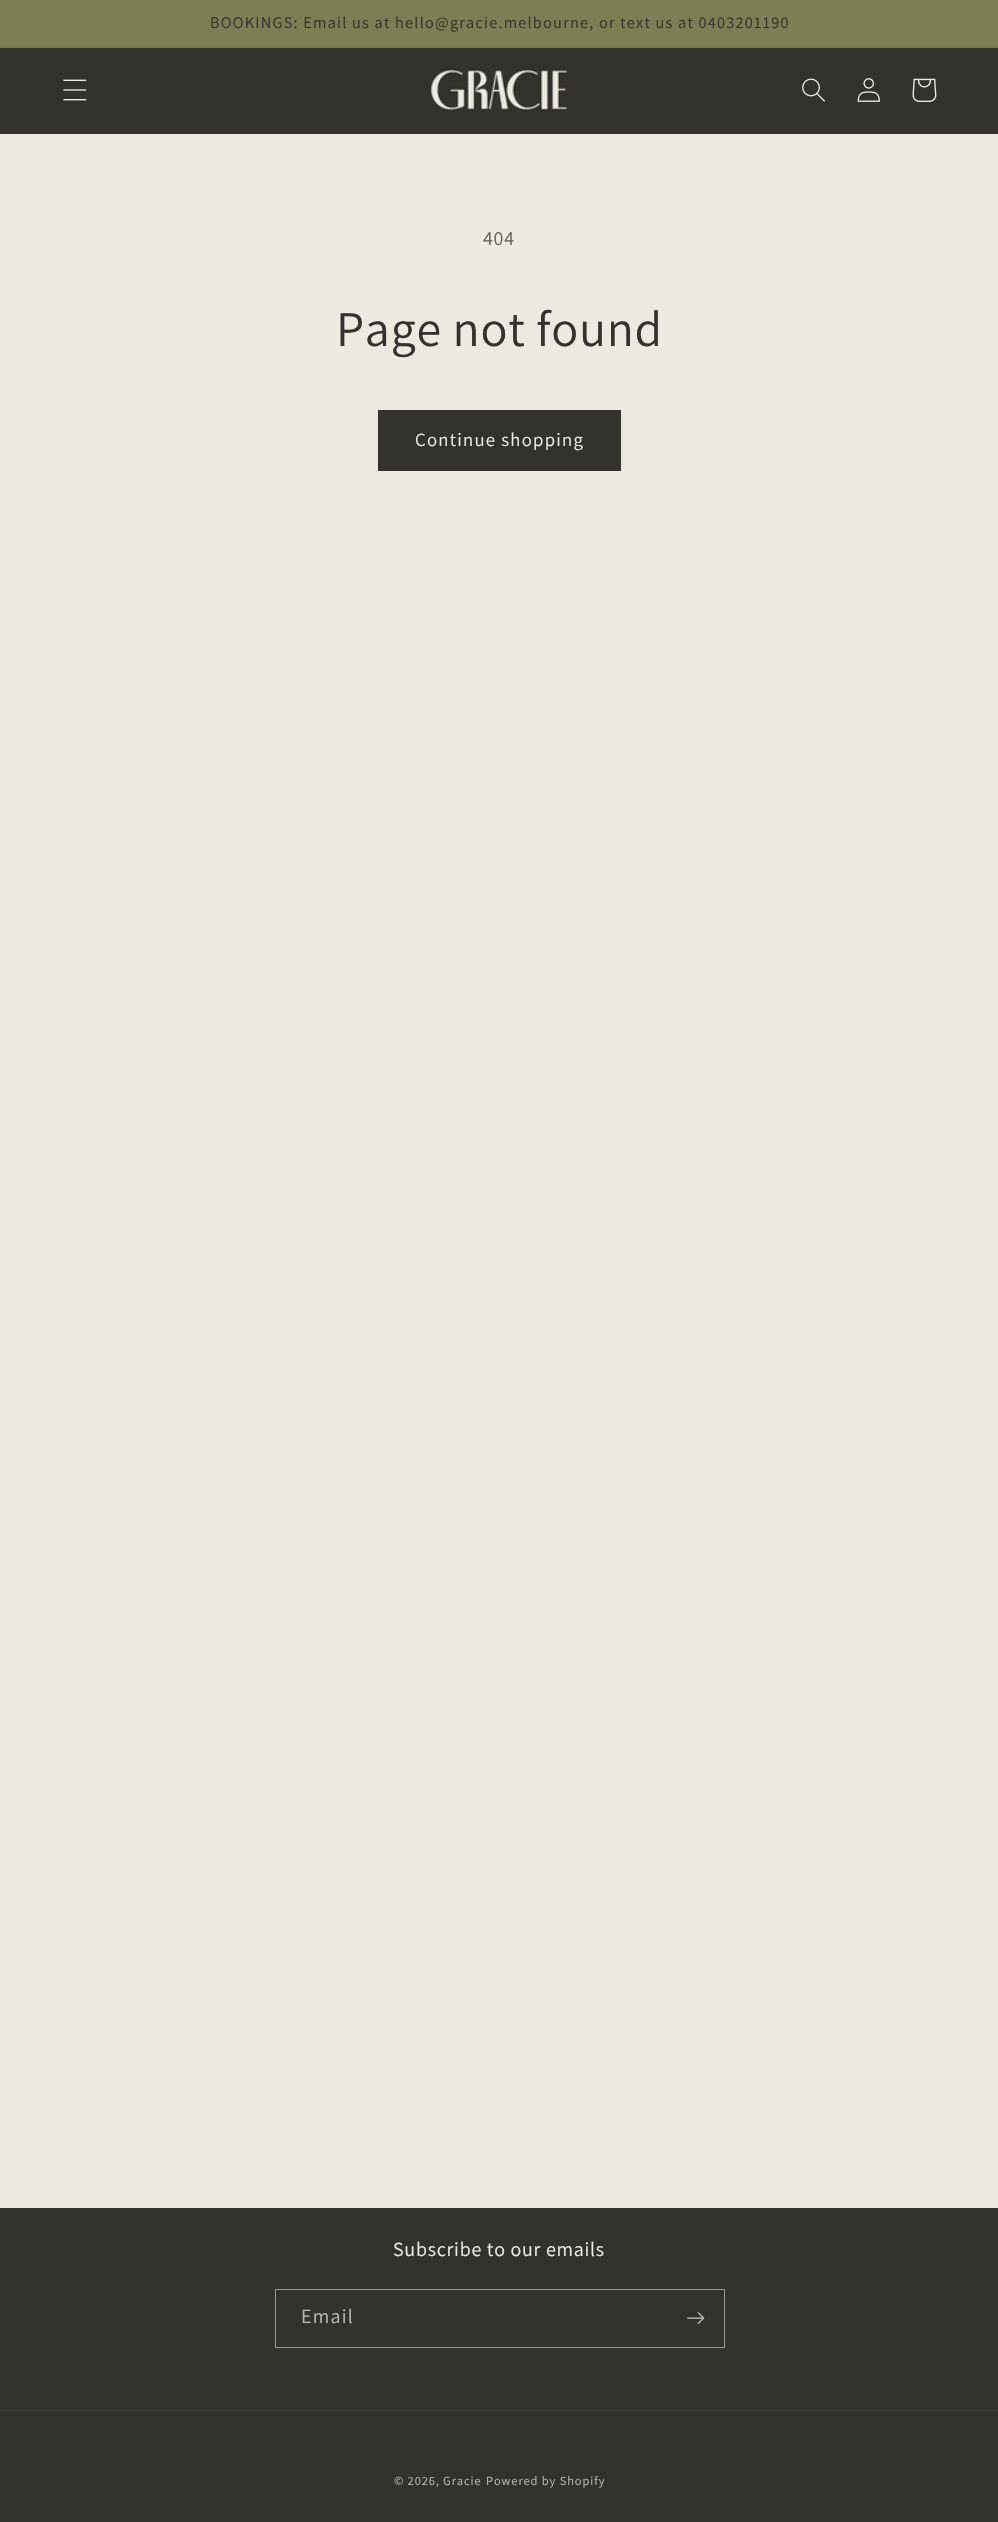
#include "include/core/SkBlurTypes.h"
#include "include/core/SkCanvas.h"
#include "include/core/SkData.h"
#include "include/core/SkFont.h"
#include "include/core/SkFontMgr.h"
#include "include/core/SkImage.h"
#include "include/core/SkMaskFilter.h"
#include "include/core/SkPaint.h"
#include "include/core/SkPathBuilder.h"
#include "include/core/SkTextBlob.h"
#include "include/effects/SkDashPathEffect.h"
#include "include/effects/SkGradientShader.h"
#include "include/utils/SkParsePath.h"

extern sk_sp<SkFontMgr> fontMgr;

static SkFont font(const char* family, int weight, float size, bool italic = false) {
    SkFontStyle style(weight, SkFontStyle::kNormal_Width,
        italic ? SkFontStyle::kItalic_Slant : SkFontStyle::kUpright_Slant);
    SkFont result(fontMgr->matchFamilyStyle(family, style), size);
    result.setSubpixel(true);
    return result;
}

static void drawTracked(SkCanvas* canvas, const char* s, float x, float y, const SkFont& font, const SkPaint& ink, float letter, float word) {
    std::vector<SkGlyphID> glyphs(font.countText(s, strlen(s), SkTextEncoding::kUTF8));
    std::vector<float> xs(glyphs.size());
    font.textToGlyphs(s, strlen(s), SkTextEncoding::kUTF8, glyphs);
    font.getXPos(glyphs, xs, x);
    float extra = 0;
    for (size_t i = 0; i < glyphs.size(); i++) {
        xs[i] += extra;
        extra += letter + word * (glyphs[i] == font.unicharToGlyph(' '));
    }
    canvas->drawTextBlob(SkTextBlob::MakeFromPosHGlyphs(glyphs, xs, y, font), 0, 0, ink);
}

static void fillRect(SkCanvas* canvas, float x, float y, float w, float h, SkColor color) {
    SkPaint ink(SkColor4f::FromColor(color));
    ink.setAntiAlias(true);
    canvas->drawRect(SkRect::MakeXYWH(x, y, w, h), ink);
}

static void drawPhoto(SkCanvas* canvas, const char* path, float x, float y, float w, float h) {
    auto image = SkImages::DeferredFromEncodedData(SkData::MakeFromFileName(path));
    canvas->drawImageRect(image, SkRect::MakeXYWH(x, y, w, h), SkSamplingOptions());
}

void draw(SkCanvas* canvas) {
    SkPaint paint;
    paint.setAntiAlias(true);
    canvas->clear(0xFFECE9E0);
    fillRect(canvas, 0, 0, 998, 48, 0xFF7D7E54);
    fillRect(canvas, 0, 46, 998, 1, 0xFF777851);
    SkFont font1 = font("Assistant", 400, 16.25f);
    paint.setColor(0xFF33322F);
    drawTracked(canvas, "BOOKINGS: Email us at hello@gracie.melbourne, or text us at 0403201190", 210, 28, font1, paint, 1.25f, 0);
    fillRect(canvas, 0, 48, 998, 86, 0xFF33322F);
    drawPhoto(canvas, "assets/img1.png", 63, 79, 24, 22);
    drawPhoto(canvas, "assets/img2.png", 430, 68, 139, 44);
    drawPhoto(canvas, "assets/img3.png", 802, 78, 23, 24);
    drawPhoto(canvas, "assets/img4.png", 857, 78, 23, 24);
    drawPhoto(canvas, "assets/img5.png", 912, 78, 25, 24);
    SkFont font2 = font("Assistant", 400, 20);
    paint.setColor(0xFF61605B);
    drawTracked(canvas, "404", 483, 245, font2, paint, 0.75f, 0);
    SkFont font3 = font("Assistant", 400, 50);
    paint.setColor(0xFF33322F);
    drawTracked(canvas, "Page not found", 336, 346, font3, paint, 0.75f, 0);
    fillRect(canvas, 378, 410, 243, 61, 0xFF33322F);
    SkFont font4 = font("Assistant", 400, 18.75f);
    paint.setColor(0xFFECE9E0);
    drawTracked(canvas, "Continue shopping", 415, 446, font4, paint, 1.25f, 0);
    fillRect(canvas, 0, 2208, 998, 314, 0xFF33322F);
    drawTracked(canvas, "Subscribe to our emails", 393, 2256, font2, paint, 0.75f, 0);
    paint.setStroke(true);
    paint.setStrokeWidth(1);
    paint.setColor(0xFF999790);
    canvas->drawRect(SkRect::MakeXYWH(275.5f, 2289.5f, 449, 58), paint);
    paint.setStroke(false);
    paint.setColor(0xFFBEBBB4);
    drawTracked(canvas, "Email", 301, 2323, font2, paint, 1.25f, 0);
    drawPhoto(canvas, "assets/img6.png", 687, 2312, 18, 13);
    fillRect(canvas, 0, 2410, 998, 1, 0xFF42413D);
    SkFont font5 = font("Assistant", 400, 12.5f);
    drawTracked(canvas, "© 2026, Gracie", 394, 2485, font5, paint, 0.9f, 0);
    drawTracked(canvas, "Powered by Shopify", 486, 2485, font5, paint, 0.9f, 0);
}
